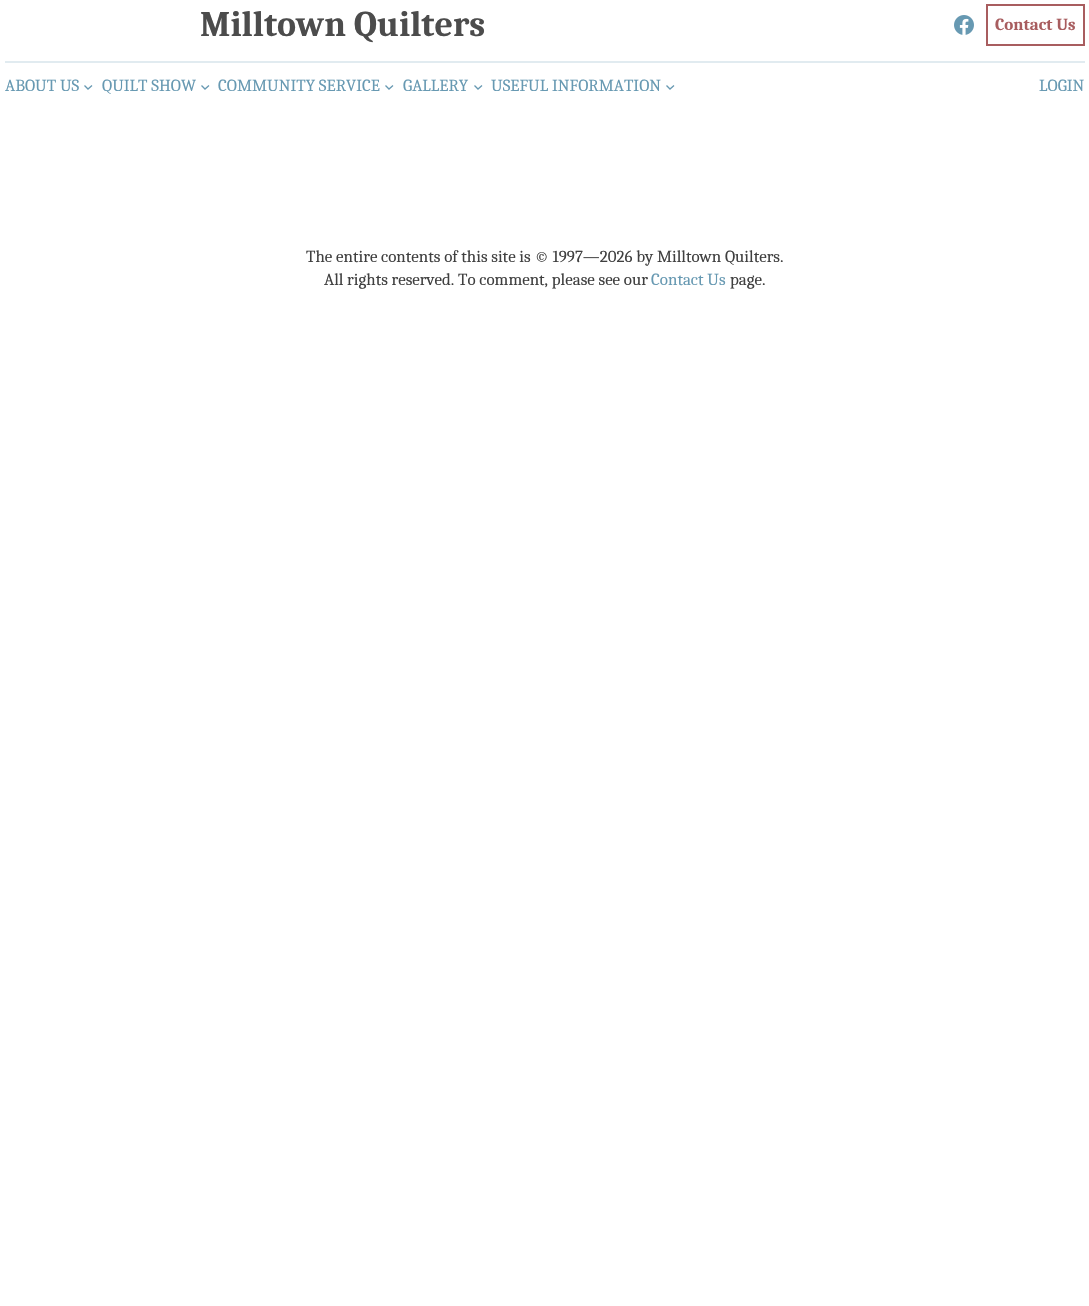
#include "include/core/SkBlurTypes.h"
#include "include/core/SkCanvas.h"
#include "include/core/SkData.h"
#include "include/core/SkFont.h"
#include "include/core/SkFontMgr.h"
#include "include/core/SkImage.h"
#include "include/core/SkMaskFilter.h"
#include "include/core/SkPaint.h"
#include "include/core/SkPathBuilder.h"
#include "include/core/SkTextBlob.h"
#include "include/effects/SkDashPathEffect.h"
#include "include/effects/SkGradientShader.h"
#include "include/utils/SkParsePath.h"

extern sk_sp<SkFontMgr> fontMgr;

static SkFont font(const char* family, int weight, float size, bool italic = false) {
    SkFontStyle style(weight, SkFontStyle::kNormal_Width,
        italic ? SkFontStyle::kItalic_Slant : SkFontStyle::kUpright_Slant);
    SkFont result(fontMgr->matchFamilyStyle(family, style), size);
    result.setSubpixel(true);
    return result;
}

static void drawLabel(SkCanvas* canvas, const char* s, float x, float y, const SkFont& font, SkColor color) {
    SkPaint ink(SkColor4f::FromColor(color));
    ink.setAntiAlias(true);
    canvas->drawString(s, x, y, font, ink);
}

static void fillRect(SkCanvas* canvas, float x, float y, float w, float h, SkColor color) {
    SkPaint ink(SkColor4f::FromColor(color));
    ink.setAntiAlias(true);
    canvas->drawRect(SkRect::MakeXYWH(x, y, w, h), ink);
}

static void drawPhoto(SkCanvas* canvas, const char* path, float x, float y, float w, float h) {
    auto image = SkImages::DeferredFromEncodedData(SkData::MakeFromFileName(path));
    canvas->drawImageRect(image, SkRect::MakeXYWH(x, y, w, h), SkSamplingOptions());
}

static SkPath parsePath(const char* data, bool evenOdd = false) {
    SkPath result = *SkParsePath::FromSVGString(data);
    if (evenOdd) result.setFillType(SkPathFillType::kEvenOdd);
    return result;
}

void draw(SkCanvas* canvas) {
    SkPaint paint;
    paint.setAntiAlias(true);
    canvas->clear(0xFFFFFFFF);
    fillRect(canvas, 5, 61, 1080, 2, 0xFFE1EBF0);
    SkFont font1 = font("Caladea", 700, 36);
    drawLabel(canvas, "Milltown Quilters", 200, 36, font1, 0xFF4C4C4C);
    drawPhoto(canvas, "assets/img1.png", 954, 15, 20, 20);
    paint.setStroke(true);
    paint.setStrokeWidth(2);
    paint.setColor(0xFFA85D5F);
    canvas->drawRect(SkRect::MakeXYWH(987, 5, 97, 40), paint);
    SkFont font2 = font("Caladea", 700, 16.95f);
    drawLabel(canvas, "Contact Us", 995, 30, font2, 0xFFA85D5F);
    SkFont font3 = font("Caladea", 400, 16.95f);
    drawLabel(canvas, "ABOUT US", 5, 91, font3, 0xFF6799B2);
    paint.setStrokeWidth(1.3f);
    paint.setColor(0xFF6799B2);
    canvas->drawPath(parsePath("M84.5 85.5L88 89L92 85.5"), paint);
    drawLabel(canvas, "QUILT SHOW", 102, 91, font3, 0xFF6799B2);
    canvas->drawPath(parsePath("M201.5 85.5L205 89L209 85.5"), paint);
    drawLabel(canvas, "COMMUNITY SERVICE", 218, 91, font3, 0xFF6799B2);
    canvas->drawPath(parsePath("M385.5 85.5L389 89L393 85.5"), paint);
    drawLabel(canvas, "GALLERY", 403, 91, font3, 0xFF6799B2);
    canvas->drawPath(parsePath("M474.5 85.5L478 89L482 85.5"), paint);
    drawLabel(canvas, "USEFUL INFORMATION", 491, 91, font3, 0xFF6799B2);
    canvas->drawPath(parsePath("M666.5 85.5L670 89L674 85.5"), paint);
    drawLabel(canvas, "LOGIN", 1039, 91, font3, 0xFF6799B2);
    drawLabel(canvas, "The entire contents of this site is © 1997—2026 by Milltown Quilters.", 306, 262, font3, 0xFF404040);
    drawLabel(canvas, "All rights reserved. To comment, please see our", 324, 285, font3, 0xFF404040);
    drawLabel(canvas, "Contact Us", 651, 285, font3, 0xFF6799B2);
    drawLabel(canvas, "page.", 730, 285, font3, 0xFF404040);
}
